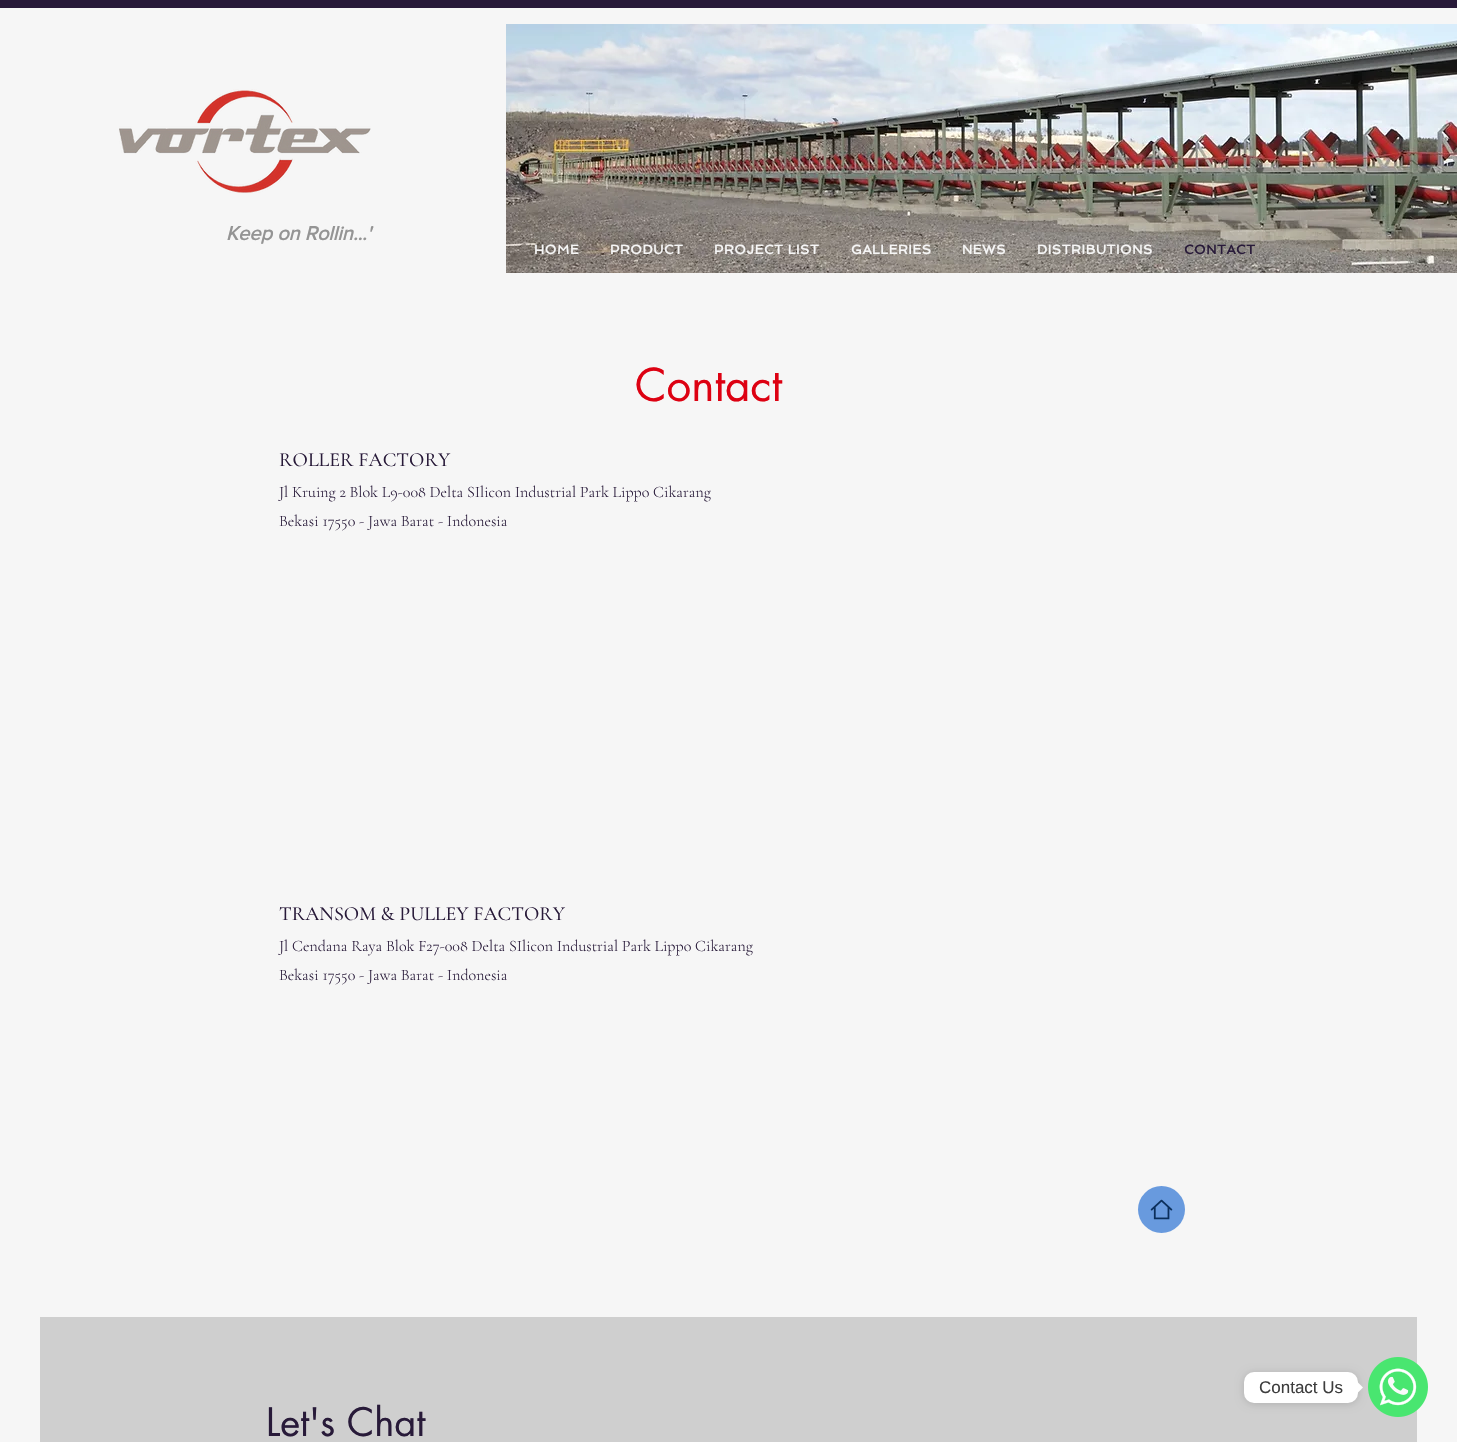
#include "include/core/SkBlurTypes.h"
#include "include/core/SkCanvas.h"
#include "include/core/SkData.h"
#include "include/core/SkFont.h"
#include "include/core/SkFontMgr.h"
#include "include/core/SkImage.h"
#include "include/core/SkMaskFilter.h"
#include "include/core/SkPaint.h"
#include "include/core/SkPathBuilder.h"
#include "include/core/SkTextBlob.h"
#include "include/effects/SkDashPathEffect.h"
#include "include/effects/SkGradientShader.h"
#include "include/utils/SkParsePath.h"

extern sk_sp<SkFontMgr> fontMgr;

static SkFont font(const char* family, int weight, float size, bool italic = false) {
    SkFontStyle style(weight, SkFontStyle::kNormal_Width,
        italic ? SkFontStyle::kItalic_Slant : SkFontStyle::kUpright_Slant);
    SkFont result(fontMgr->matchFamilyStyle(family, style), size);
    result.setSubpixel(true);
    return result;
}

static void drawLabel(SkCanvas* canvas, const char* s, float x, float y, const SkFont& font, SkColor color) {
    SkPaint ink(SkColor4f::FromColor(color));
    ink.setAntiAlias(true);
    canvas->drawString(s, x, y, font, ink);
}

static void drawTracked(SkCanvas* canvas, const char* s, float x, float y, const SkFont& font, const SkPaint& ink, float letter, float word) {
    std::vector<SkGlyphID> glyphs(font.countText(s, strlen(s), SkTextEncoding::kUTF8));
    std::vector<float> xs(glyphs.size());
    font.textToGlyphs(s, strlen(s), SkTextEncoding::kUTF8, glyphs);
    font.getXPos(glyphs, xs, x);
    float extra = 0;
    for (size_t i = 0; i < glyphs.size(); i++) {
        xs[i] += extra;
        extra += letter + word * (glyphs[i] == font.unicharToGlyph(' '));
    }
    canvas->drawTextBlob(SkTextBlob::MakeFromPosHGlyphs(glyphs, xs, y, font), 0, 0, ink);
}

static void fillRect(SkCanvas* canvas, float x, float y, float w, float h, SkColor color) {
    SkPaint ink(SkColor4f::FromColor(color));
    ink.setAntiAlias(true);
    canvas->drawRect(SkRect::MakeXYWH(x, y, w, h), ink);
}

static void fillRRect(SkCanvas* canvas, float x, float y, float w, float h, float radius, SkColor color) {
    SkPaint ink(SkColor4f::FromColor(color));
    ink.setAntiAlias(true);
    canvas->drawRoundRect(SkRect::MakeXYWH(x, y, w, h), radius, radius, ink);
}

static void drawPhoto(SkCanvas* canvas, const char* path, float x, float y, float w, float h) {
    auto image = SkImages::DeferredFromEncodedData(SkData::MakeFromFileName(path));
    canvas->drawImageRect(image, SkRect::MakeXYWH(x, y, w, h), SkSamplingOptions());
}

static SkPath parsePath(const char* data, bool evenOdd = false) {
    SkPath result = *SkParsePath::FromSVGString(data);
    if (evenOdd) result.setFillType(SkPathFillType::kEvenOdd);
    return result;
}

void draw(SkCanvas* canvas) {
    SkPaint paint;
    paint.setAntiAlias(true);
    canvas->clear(0xFFF6F6F6);
    fillRect(canvas, 0, 0, 1457, 8, 0xFF281A39);
    drawPhoto(canvas, "assets/img1.png", 119, 89, 252, 104);
    drawPhoto(canvas, "assets/img2.png", 506, 24, 951, 249);
    SkFont font1 = font("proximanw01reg", 700, 20, true);
    drawLabel(canvas, "Keep on Rollin...'", 226, 240, font1, 0xFF949494);
    SkFont font2 = font("Spinnaker", 700, 13);
    paint.setColor(0xFFF6F6F6);
    drawTracked(canvas, "HOME", 534, 254, font2, paint, 0.6f, 0);
    drawTracked(canvas, "PRODUCT", 610, 254, font2, paint, 0.6f, 0);
    drawTracked(canvas, "PROJECT LIST", 714, 254, font2, paint, 0.6f, 0);
    drawTracked(canvas, "GALLERIES", 851, 254, font2, paint, 0.6f, 0);
    drawTracked(canvas, "NEWS", 962, 254, font2, paint, 0.6f, 0);
    drawTracked(canvas, "DISTRIBUTIONS", 1037, 254, font2, paint, 0.6f, 0);
    paint.setColor(0xFF281A39);
    drawTracked(canvas, "CONTACT", 1184, 254, font2, paint, 0.6f, 0);
    SkFont font3 = font("futura", 400, 44);
    drawLabel(canvas, "Contact", 635, 401, font3, 0xFFDD0112);
    SkFont font4 = font("Cormorant Garamond", 500, 20);
    drawLabel(canvas, "ROLLER FACTORY", 279, 466, font4, 0xFF281A39);
    SkFont font5 = font("Cormorant Garamond", 300, 16);
    drawLabel(canvas, "Jl Kruing 2 Blok L9-008 Delta SIlicon Industrial Park Lippo Cikarang", 279, 497, font5, 0xFF281A39);
    drawLabel(canvas, "Bekasi 17550 - Jawa Barat - Indonesia", 279, 526, font5, 0xFF281A39);
    drawLabel(canvas, "TRANSOM & PULLEY FACTORY", 279, 920, font4, 0xFF281A39);
    drawLabel(canvas, "Jl Cendana Raya Blok F27-008 Delta SIlicon Industrial Park Lippo Cikarang", 279, 951, font5, 0xFF281A39);
    drawLabel(canvas, "Bekasi 17550 - Jawa Barat - Indonesia", 279, 980, font5, 0xFF281A39);
    paint.setColor(0xFF689ADE);
    canvas->drawCircle(1161.5f, 1209.5f, 23.5f, paint);
    drawPhoto(canvas, "assets/img3.png", 1150, 1199, 23, 21);
    fillRect(canvas, 40, 1317, 1377, 125, 0xFFCFCFCF);
    SkFont font6 = font("futura", 400, 38);
    drawLabel(canvas, "Let's Chat", 266, 1436, font6, 0xFF281A39);
    drawPhoto(canvas, "assets/img4.png", 1368, 1357, 60, 60);
    paint.setColor(0x26000000);
    paint.setMaskFilter(SkMaskFilter::MakeBlur(kNormal_SkBlurStyle, 4));
    canvas->drawRoundRect(SkRect::MakeXYWH(1244, 1373, 114, 31), 10, 10, paint);
    paint.setMaskFilter(nullptr);
    fillRRect(canvas, 1244, 1372, 114, 31, 10, 0xFFFFFFFF);
    SkFont font7 = font("Liberation Sans", 400, 17);
    drawLabel(canvas, "Contact Us", 1259, 1393, font7, 0xFF3D3D3D);
    paint.setColor(0xFFFFFFFF);
    canvas->drawPath(parsePath("M1358 1392.5V1382.5L1363 1387.5Z"), paint);
}
